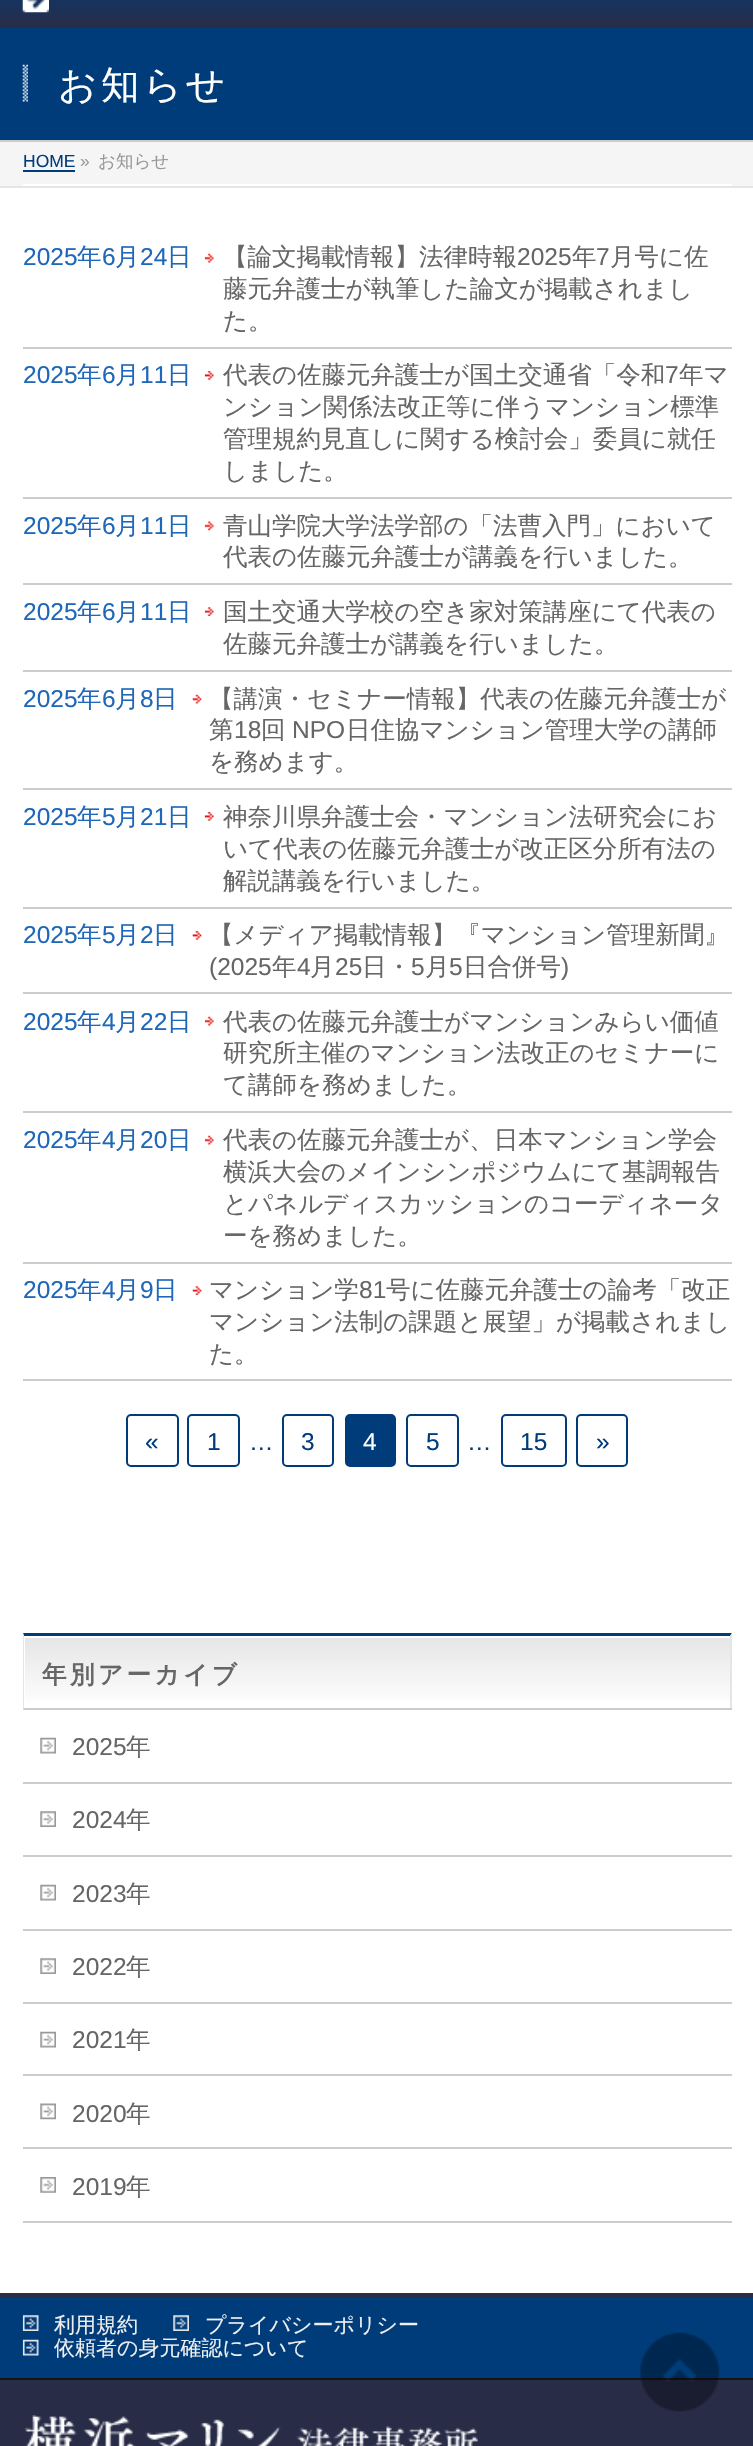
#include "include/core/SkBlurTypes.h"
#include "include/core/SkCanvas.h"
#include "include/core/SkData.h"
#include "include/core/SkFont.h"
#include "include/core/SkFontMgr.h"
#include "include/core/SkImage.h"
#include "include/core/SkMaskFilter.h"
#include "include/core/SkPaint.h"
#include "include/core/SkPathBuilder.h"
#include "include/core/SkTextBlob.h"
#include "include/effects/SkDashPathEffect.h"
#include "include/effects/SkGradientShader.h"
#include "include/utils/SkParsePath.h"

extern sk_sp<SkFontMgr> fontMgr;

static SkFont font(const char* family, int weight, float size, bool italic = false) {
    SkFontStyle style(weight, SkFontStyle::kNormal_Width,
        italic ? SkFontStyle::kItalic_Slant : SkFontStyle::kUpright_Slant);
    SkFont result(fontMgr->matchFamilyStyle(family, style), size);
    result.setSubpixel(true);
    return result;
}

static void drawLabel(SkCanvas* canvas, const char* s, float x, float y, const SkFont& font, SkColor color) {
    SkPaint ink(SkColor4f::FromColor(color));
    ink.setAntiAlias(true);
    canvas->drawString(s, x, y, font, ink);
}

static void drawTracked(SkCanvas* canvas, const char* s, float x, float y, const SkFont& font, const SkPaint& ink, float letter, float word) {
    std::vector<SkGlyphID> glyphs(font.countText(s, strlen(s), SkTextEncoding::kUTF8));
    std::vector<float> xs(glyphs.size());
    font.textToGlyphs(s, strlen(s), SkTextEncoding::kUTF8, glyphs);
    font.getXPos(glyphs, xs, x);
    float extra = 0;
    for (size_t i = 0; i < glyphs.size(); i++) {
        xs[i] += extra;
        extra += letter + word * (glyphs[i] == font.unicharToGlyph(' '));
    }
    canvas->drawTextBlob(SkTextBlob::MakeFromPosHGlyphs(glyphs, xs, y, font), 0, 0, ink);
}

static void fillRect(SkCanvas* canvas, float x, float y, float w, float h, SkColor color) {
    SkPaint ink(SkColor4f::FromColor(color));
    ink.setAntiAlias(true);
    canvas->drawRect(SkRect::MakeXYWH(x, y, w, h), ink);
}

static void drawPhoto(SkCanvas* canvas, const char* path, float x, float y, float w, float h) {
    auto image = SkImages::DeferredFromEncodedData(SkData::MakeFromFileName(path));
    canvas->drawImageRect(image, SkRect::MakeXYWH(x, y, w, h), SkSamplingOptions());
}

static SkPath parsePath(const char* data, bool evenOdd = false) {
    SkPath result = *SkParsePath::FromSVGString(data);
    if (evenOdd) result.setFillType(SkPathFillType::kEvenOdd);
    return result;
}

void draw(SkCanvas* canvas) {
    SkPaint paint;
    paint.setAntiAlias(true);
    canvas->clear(0xFFFFFFFF);
    {
        const SkColor colors[] = {0xFF003C7A, 0xFF282C47};
        const float stops[] = {0, 1};
        const SkPoint ends[] = {{376, -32}, {376, 28}};
        paint.setShader(SkGradientShader::MakeLinear(ends, colors, stops, 2, SkTileMode::kClamp));
        paint.setAlpha(255);
    }
    canvas->drawRect(SkRect::MakeXYWH(0, 0, 753, 28), paint);
    drawPhoto(canvas, "assets/img1.png", 22, 0, 27, 13);
    fillRect(canvas, 0, 28, 753, 112, 0xFF003C7A);
    fillRect(canvas, 0, 140, 753, 2, 0xFFCCCCCC);
    drawPhoto(canvas, "assets/img2.png", 22, 64, 6, 38);
    SkFont font1 = font("WenQuanYi Zen Hei", 500, 38.5f);
    paint.setShader(nullptr);
    paint.setColor(0xFFFFFFFF);
    drawTracked(canvas, "お知らせ", 58, 98, font1, paint, 3.5f, 0);
    fillRect(canvas, 0, 142, 753, 44, 0xFFF5F5F5);
    fillRect(canvas, 0, 186, 753, 2, 0xFFE5E5E5);
    fillRect(canvas, 23, 184, 709, 2, 0xFFFFFFFF);
    SkFont font2 = font("Liberation Sans", 400, 17.5f);
    drawLabel(canvas, "HOME", 23, 167, font2, 0xFF003C7A);
    fillRect(canvas, 23, 170, 52, 2, 0xFF003C7A);
    drawLabel(canvas, "»", 80, 167, font2, 0xFF999999);
    SkFont font3 = font("WenQuanYi Zen Hei", 500, 17.5f);
    drawLabel(canvas, "お知らせ", 98, 167, font3, 0xFF999999);
    fillRect(canvas, 23, 347, 709, 2, 0xFFCCCCCC);
    SkFont font4 = font("Liberation Sans", 400, 24.5f);
    drawLabel(canvas, "2025", 23, 265, font4, 0xFF1F67B9);
    SkFont font5 = font("WenQuanYi Zen Hei", 500, 24.5f);
    drawLabel(canvas, "年", 77, 265, font5, 0xFF1F67B9);
    drawLabel(canvas, "6", 102, 265, font4, 0xFF1F67B9);
    drawLabel(canvas, "月", 115, 265, font5, 0xFF1F67B9);
    drawLabel(canvas, "24", 140, 265, font4, 0xFF1F67B9);
    drawLabel(canvas, "日", 167, 265, font5, 0xFF1F67B9);
    drawPhoto(canvas, "assets/img3.png", 204, 253, 10, 10);
    drawLabel(canvas, "【論文掲載情報】法律時報", 223, 265, font5, 0xFF666666);
    drawLabel(canvas, "2025", 517, 265, font4, 0xFF666666);
    drawLabel(canvas, "年", 572, 265, font5, 0xFF666666);
    drawLabel(canvas, "7", 596, 265, font4, 0xFF666666);
    drawLabel(canvas, "月号に佐", 610, 265, font5, 0xFF666666);
    drawLabel(canvas, "藤元弁護士が執筆した論文が掲載されまし", 223, 297, font5, 0xFF666666);
    drawLabel(canvas, "た。", 223, 329, font5, 0xFF666666);
    fillRect(canvas, 23, 497, 709, 2, 0xFFCCCCCC);
    drawLabel(canvas, "2025", 23, 383, font4, 0xFF1F67B9);
    drawLabel(canvas, "年", 77, 383, font5, 0xFF1F67B9);
    drawLabel(canvas, "6", 102, 383, font4, 0xFF1F67B9);
    drawLabel(canvas, "月", 115, 383, font5, 0xFF1F67B9);
    drawLabel(canvas, "11", 140, 383, font4, 0xFF1F67B9);
    drawLabel(canvas, "日", 167, 383, font5, 0xFF1F67B9);
    drawPhoto(canvas, "assets/img4.png", 204, 371, 10, 9);
    drawLabel(canvas, "代表の佐藤元弁護士が国土交通省「令和", 223, 383, font5, 0xFF666666);
    drawLabel(canvas, "7", 665, 383, font4, 0xFF666666);
    drawLabel(canvas, "年マ", 679, 383, font5, 0xFF666666);
    drawLabel(canvas, "ンション関係法改正等に伴うマンション標準", 223, 415, font5, 0xFF666666);
    drawLabel(canvas, "管理規約見直しに関する検討会」委員に就任", 223, 447, font5, 0xFF666666);
    drawLabel(canvas, "しました。", 223, 479, font5, 0xFF666666);
    fillRect(canvas, 23, 583, 709, 2, 0xFFCCCCCC);
    drawLabel(canvas, "2025", 23, 534, font4, 0xFF1F67B9);
    drawLabel(canvas, "年", 77, 534, font5, 0xFF1F67B9);
    drawLabel(canvas, "6", 102, 534, font4, 0xFF1F67B9);
    drawLabel(canvas, "月", 115, 534, font5, 0xFF1F67B9);
    drawLabel(canvas, "11", 140, 534, font4, 0xFF1F67B9);
    drawLabel(canvas, "日", 167, 534, font5, 0xFF1F67B9);
    drawPhoto(canvas, "assets/img5.png", 204, 521, 10, 10);
    drawLabel(canvas, "青山学院大学法学部の「法曹入門」において", 223, 534, font5, 0xFF666666);
    drawLabel(canvas, "代表の佐藤元弁護士が講義を行いました。", 223, 565, font5, 0xFF666666);
    fillRect(canvas, 23, 670, 709, 2, 0xFFCCCCCC);
    drawLabel(canvas, "2025", 23, 620, font4, 0xFF1F67B9);
    drawLabel(canvas, "年", 77, 620, font5, 0xFF1F67B9);
    drawLabel(canvas, "6", 102, 620, font4, 0xFF1F67B9);
    drawLabel(canvas, "月", 115, 620, font5, 0xFF1F67B9);
    drawLabel(canvas, "11", 140, 620, font4, 0xFF1F67B9);
    drawLabel(canvas, "日", 167, 620, font5, 0xFF1F67B9);
    drawPhoto(canvas, "assets/img6.png", 204, 607, 10, 9);
    drawLabel(canvas, "国土交通大学校の空き家対策講座にて代表の", 223, 620, font5, 0xFF666666);
    drawLabel(canvas, "佐藤元弁護士が講義を行いました。", 223, 652, font5, 0xFF666666);
    fillRect(canvas, 23, 788, 709, 2, 0xFFCCCCCC);
    drawLabel(canvas, "2025", 23, 707, font4, 0xFF1F67B9);
    drawLabel(canvas, "年", 77, 707, font5, 0xFF1F67B9);
    drawLabel(canvas, "6", 102, 707, font4, 0xFF1F67B9);
    drawLabel(canvas, "月", 115, 707, font5, 0xFF1F67B9);
    drawLabel(canvas, "8", 140, 707, font4, 0xFF1F67B9);
    drawLabel(canvas, "日", 153, 707, font5, 0xFF1F67B9);
    drawPhoto(canvas, "assets/img7.png", 192, 694, 10, 10);
    drawLabel(canvas, "【講演・セミナー情報】代表の佐藤元弁護士が", 209, 707, font5, 0xFF666666);
    drawLabel(canvas, "第", 209, 738, font5, 0xFF666666);
    drawLabel(canvas, "18", 234, 738, font4, 0xFF666666);
    drawLabel(canvas, "回", 261, 738, font5, 0xFF666666);
    drawLabel(canvas, "NPO", 292, 738, font4, 0xFF666666);
    drawLabel(canvas, "日住協マンション管理大学の講師", 346, 738, font5, 0xFF666666);
    drawLabel(canvas, "を務めます。", 209, 770, font5, 0xFF666666);
    fillRect(canvas, 23, 907, 709, 2, 0xFFCCCCCC);
    drawLabel(canvas, "2025", 23, 825, font4, 0xFF1F67B9);
    drawLabel(canvas, "年", 77, 825, font5, 0xFF1F67B9);
    drawLabel(canvas, "5", 102, 825, font4, 0xFF1F67B9);
    drawLabel(canvas, "月", 115, 825, font5, 0xFF1F67B9);
    drawLabel(canvas, "21", 140, 825, font4, 0xFF1F67B9);
    drawLabel(canvas, "日", 167, 825, font5, 0xFF1F67B9);
    drawPhoto(canvas, "assets/img4.png", 204, 812, 10, 9);
    drawLabel(canvas, "神奈川県弁護士会・マンション法研究会にお", 223, 825, font5, 0xFF666666);
    drawLabel(canvas, "いて代表の佐藤元弁護士が改正区分所有法の", 223, 857, font5, 0xFF666666);
    drawLabel(canvas, "解説講義を行いました。", 223, 889, font5, 0xFF666666);
    fillRect(canvas, 23, 992, 709, 2, 0xFFCCCCCC);
    drawLabel(canvas, "2025", 23, 943, font4, 0xFF1F67B9);
    drawLabel(canvas, "年", 77, 943, font5, 0xFF1F67B9);
    drawLabel(canvas, "5", 102, 943, font4, 0xFF1F67B9);
    drawLabel(canvas, "月", 115, 943, font5, 0xFF1F67B9);
    drawLabel(canvas, "2", 140, 943, font4, 0xFF1F67B9);
    drawLabel(canvas, "日", 153, 943, font5, 0xFF1F67B9);
    drawPhoto(canvas, "assets/img8.png", 192, 931, 10, 9);
    drawLabel(canvas, "【メディア掲載情報】『マンション管理新聞』", 209, 943, font5, 0xFF666666);
    drawLabel(canvas, "(2025", 209, 975, font4, 0xFF666666);
    drawLabel(canvas, "年", 272, 975, font5, 0xFF666666);
    drawLabel(canvas, "4", 297, 975, font4, 0xFF666666);
    drawLabel(canvas, "月", 310, 975, font5, 0xFF666666);
    drawLabel(canvas, "25", 335, 975, font4, 0xFF666666);
    drawLabel(canvas, "日・", 362, 975, font5, 0xFF666666);
    drawLabel(canvas, "5", 411, 975, font4, 0xFF666666);
    drawLabel(canvas, "月", 425, 975, font5, 0xFF666666);
    drawLabel(canvas, "5", 449, 975, font4, 0xFF666666);
    drawLabel(canvas, "日合併号", 463, 975, font5, 0xFF666666);
    drawLabel(canvas, ")", 561, 975, font4, 0xFF666666);
    fillRect(canvas, 23, 1111, 709, 2, 0xFFCCCCCC);
    drawLabel(canvas, "2025", 23, 1030, font4, 0xFF1F67B9);
    drawLabel(canvas, "年", 77, 1030, font5, 0xFF1F67B9);
    drawLabel(canvas, "4", 102, 1030, font4, 0xFF1F67B9);
    drawLabel(canvas, "月", 115, 1030, font5, 0xFF1F67B9);
    drawLabel(canvas, "22", 140, 1030, font4, 0xFF1F67B9);
    drawLabel(canvas, "日", 167, 1030, font5, 0xFF1F67B9);
    drawPhoto(canvas, "assets/img3.png", 204, 1016, 10, 10);
    drawLabel(canvas, "代表の佐藤元弁護士がマンションみらい価値", 223, 1030, font5, 0xFF666666);
    drawLabel(canvas, "研究所主催のマンション法改正のセミナーに", 223, 1061, font5, 0xFF666666);
    drawLabel(canvas, "て講師を務めました。", 223, 1093, font5, 0xFF666666);
    fillRect(canvas, 23, 1262, 709, 2, 0xFFCCCCCC);
    drawLabel(canvas, "2025", 23, 1148, font4, 0xFF1F67B9);
    drawLabel(canvas, "年", 77, 1148, font5, 0xFF1F67B9);
    drawLabel(canvas, "4", 102, 1148, font4, 0xFF1F67B9);
    drawLabel(canvas, "月", 115, 1148, font5, 0xFF1F67B9);
    drawLabel(canvas, "20", 140, 1148, font4, 0xFF1F67B9);
    drawLabel(canvas, "日", 167, 1148, font5, 0xFF1F67B9);
    drawPhoto(canvas, "assets/img3.png", 204, 1135, 10, 10);
    drawLabel(canvas, "代表の佐藤元弁護士が、日本マンション学会", 223, 1148, font5, 0xFF666666);
    drawLabel(canvas, "横浜大会のメインシンポジウムにて基調報告", 223, 1180, font5, 0xFF666666);
    drawLabel(canvas, "とパネルディスカッションのコーディネータ", 223, 1212, font5, 0xFF666666);
    drawLabel(canvas, "ーを務めました。", 223, 1244, font5, 0xFF666666);
    fillRect(canvas, 23, 1379, 709, 2, 0xFFCCCCCC);
    drawLabel(canvas, "2025", 23, 1298, font4, 0xFF1F67B9);
    drawLabel(canvas, "年", 77, 1298, font5, 0xFF1F67B9);
    drawLabel(canvas, "4", 102, 1298, font4, 0xFF1F67B9);
    drawLabel(canvas, "月", 115, 1298, font5, 0xFF1F67B9);
    drawLabel(canvas, "9", 140, 1298, font4, 0xFF1F67B9);
    drawLabel(canvas, "日", 153, 1298, font5, 0xFF1F67B9);
    drawPhoto(canvas, "assets/img9.png", 192, 1286, 10, 9);
    drawLabel(canvas, "マンション学", 209, 1298, font5, 0xFF666666);
    drawLabel(canvas, "81", 359, 1298, font4, 0xFF666666);
    drawLabel(canvas, "号に佐藤元弁護士の論考「改正", 386, 1298, font5, 0xFF666666);
    drawLabel(canvas, "マンション法制の課題と展望」が掲載されまし", 209, 1330, font5, 0xFF666666);
    drawLabel(canvas, "た。", 209, 1362, font5, 0xFF666666);
    paint.setStroke(true);
    paint.setStrokeWidth(2);
    paint.setColor(0xFF003C7A);
    canvas->drawRoundRect(SkRect::MakeXYWH(127, 1415, 51, 51), 4, 4, paint);
    drawLabel(canvas, "«", 145, 1450, font4, 0xFF003C7A);
    canvas->drawRoundRect(SkRect::MakeXYWH(188, 1415, 51, 51), 4, 4, paint);
    drawLabel(canvas, "1", 207, 1450, font4, 0xFF003C7A);
    drawLabel(canvas, "…", 249, 1450, font4, 0xFF003C7A);
    canvas->drawRoundRect(SkRect::MakeXYWH(283, 1415, 50, 51), 4, 4, paint);
    drawLabel(canvas, "3", 301, 1450, font4, 0xFF003C7A);
    paint.setStroke(false);
    canvas->drawRoundRect(SkRect::MakeXYWH(346, 1415, 49, 51), 4, 4, paint);
    paint.setStroke(true);
    canvas->drawRoundRect(SkRect::MakeXYWH(346, 1415, 49, 51), 4, 4, paint);
    drawLabel(canvas, "4", 363, 1450, font4, 0xFFFFFFFF);
    canvas->drawRoundRect(SkRect::MakeXYWH(407, 1415, 51, 51), 4, 4, paint);
    drawLabel(canvas, "5", 426, 1450, font4, 0xFF003C7A);
    drawLabel(canvas, "…", 467, 1450, font4, 0xFF003C7A);
    canvas->drawRoundRect(SkRect::MakeXYWH(502, 1415, 64, 51), 4, 4, paint);
    drawLabel(canvas, "15", 520, 1450, font4, 0xFF003C7A);
    canvas->drawRoundRect(SkRect::MakeXYWH(577, 1415, 50, 51), 4, 4, paint);
    drawLabel(canvas, "»", 596, 1450, font4, 0xFF003C7A);
    paint.setStroke(false);
    {
        const SkColor colors[] = {0xFFE5E5E5, 0xFFFFFFFF};
        const float stops[] = {0, 1};
        const SkPoint ends[] = {{25, 1636}, {25, 1708}};
        paint.setShader(SkGradientShader::MakeLinear(ends, colors, stops, 2, SkTileMode::kClamp));
        paint.setAlpha(255);
    }
    canvas->drawRect(SkRect::MakeXYWH(25, 1638, 705, 63), paint);
    paint.setShader(nullptr);
    paint.setColor(0xFF003C7A);
    canvas->drawPath(parsePath("M23 1633H732L730 1636H24Z"), paint);
    paint.setColor(0xFFE5E5E5);
    canvas->drawPath(parsePath("M732 1633V1710L730 1708V1636Z"), paint);
    fillRect(canvas, 23, 1708, 709, 2, 0xFFCCCCCC);
    canvas->drawPath(parsePath("M23 1710V1633L24 1636V1708Z"), paint);
    SkFont font6 = font("WenQuanYi Zen Hei", 700, 24.5f);
    paint.setColor(0xFF666666);
    drawTracked(canvas, "年別アーカイブ", 42, 1683, font6, paint, 3.5f, 0);
    fillRect(canvas, 23, 1782, 709, 2, 0xFFCCCCCC);
    drawPhoto(canvas, "assets/img10.png", 40, 1737, 16, 17);
    drawLabel(canvas, "2025", 72, 1755, font4, 0xFF666666);
    drawLabel(canvas, "年", 126, 1755, font5, 0xFF666666);
    fillRect(canvas, 23, 1855, 709, 2, 0xFFCCCCCC);
    drawPhoto(canvas, "assets/img11.png", 40, 1811, 16, 16);
    drawLabel(canvas, "2024", 72, 1828, font4, 0xFF666666);
    drawLabel(canvas, "年", 126, 1828, font5, 0xFF666666);
    fillRect(canvas, 23, 1929, 709, 2, 0xFFCCCCCC);
    drawPhoto(canvas, "assets/img10.png", 40, 1884, 16, 17);
    drawLabel(canvas, "2023", 72, 1902, font4, 0xFF666666);
    drawLabel(canvas, "年", 126, 1902, font5, 0xFF666666);
    fillRect(canvas, 23, 2002, 709, 2, 0xFFCCCCCC);
    drawPhoto(canvas, "assets/img12.png", 40, 1958, 16, 16);
    drawLabel(canvas, "2022", 72, 1975, font4, 0xFF666666);
    drawLabel(canvas, "年", 126, 1975, font5, 0xFF666666);
    fillRect(canvas, 23, 2074, 709, 2, 0xFFCCCCCC);
    drawPhoto(canvas, "assets/img10.png", 40, 2031, 16, 17);
    drawLabel(canvas, "2021", 72, 2048, font4, 0xFF666666);
    drawLabel(canvas, "年", 126, 2048, font5, 0xFF666666);
    fillRect(canvas, 23, 2147, 709, 2, 0xFFCCCCCC);
    drawPhoto(canvas, "assets/img13.png", 40, 2103, 16, 17);
    drawLabel(canvas, "2020", 72, 2122, font4, 0xFF666666);
    drawLabel(canvas, "年", 126, 2122, font5, 0xFF666666);
    fillRect(canvas, 23, 2221, 709, 2, 0xFFCCCCCC);
    drawPhoto(canvas, "assets/img14.png", 40, 2177, 16, 16);
    drawLabel(canvas, "2019", 72, 2195, font4, 0xFF666666);
    drawLabel(canvas, "年", 126, 2195, font5, 0xFF666666);
    fillRect(canvas, 0, 2297, 753, 81, 0xFF003C7A);
    fillRect(canvas, 0, 2293, 753, 4, 0xFF282C47);
    drawPhoto(canvas, "assets/img15.png", 22, 2315, 17, 16);
    SkFont font7 = font("WenQuanYi Zen Hei", 500, 21);
    drawLabel(canvas, "利用規約", 54, 2332, font7, 0xFFEFEFEF);
    drawPhoto(canvas, "assets/img16.png", 173, 2315, 16, 16);
    drawLabel(canvas, "プライバシーポリシー", 205, 2332, font7, 0xFFEFEFEF);
    drawPhoto(canvas, "assets/img17.png", 22, 2339, 17, 17);
    drawLabel(canvas, "依頼者の身元確認について", 54, 2355, font7, 0xFFEFEFEF);
    fillRect(canvas, 0, 2380, 753, 66, 0xFF282C47);
    fillRect(canvas, 0, 2378, 753, 2, 0xFF151515);
    drawPhoto(canvas, "assets/img18.png", 24, 2415, 454, 31);
    drawPhoto(canvas, "assets/img19.png", 640, 2332, 80, 80);
}
